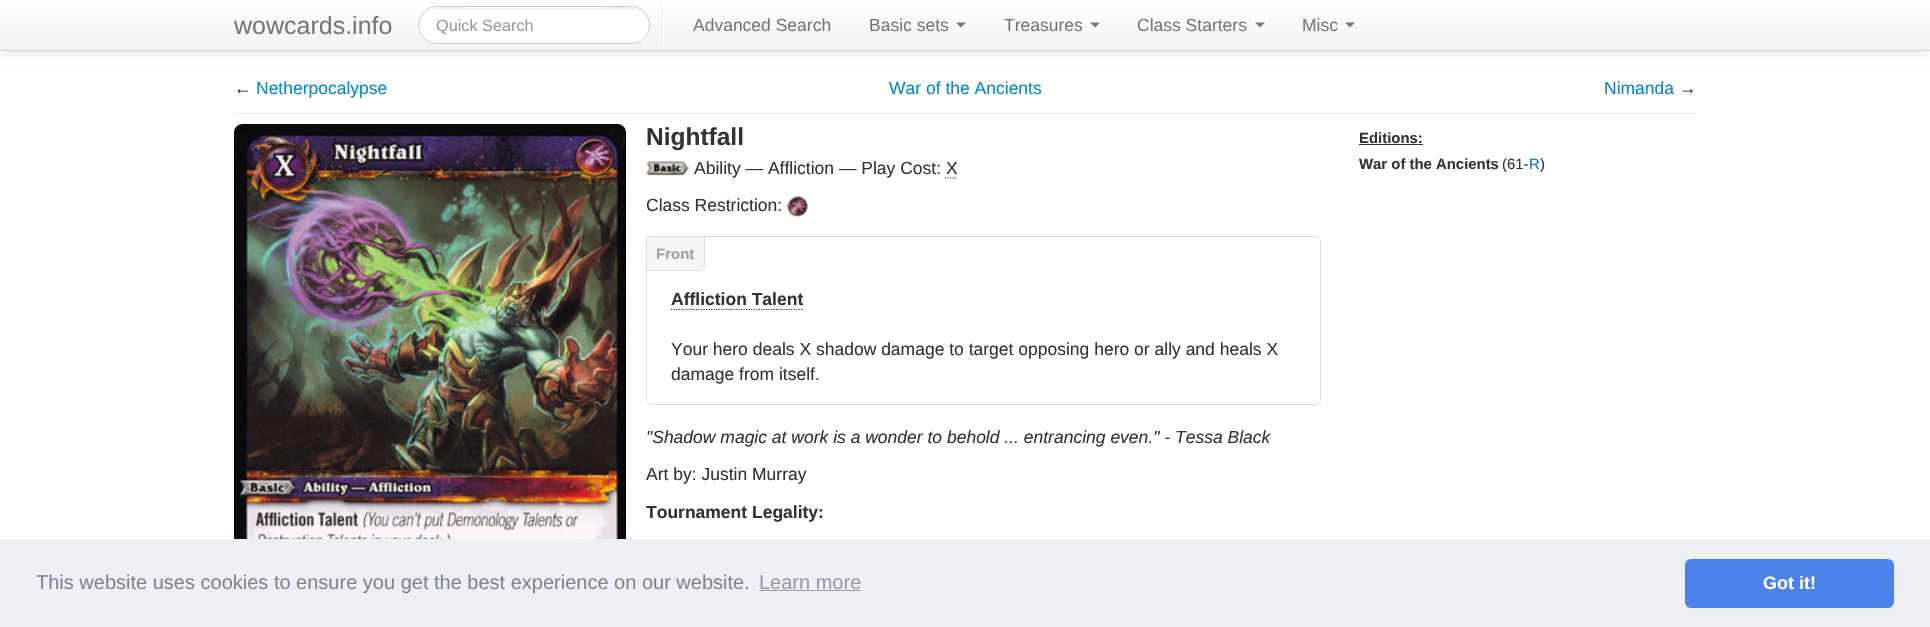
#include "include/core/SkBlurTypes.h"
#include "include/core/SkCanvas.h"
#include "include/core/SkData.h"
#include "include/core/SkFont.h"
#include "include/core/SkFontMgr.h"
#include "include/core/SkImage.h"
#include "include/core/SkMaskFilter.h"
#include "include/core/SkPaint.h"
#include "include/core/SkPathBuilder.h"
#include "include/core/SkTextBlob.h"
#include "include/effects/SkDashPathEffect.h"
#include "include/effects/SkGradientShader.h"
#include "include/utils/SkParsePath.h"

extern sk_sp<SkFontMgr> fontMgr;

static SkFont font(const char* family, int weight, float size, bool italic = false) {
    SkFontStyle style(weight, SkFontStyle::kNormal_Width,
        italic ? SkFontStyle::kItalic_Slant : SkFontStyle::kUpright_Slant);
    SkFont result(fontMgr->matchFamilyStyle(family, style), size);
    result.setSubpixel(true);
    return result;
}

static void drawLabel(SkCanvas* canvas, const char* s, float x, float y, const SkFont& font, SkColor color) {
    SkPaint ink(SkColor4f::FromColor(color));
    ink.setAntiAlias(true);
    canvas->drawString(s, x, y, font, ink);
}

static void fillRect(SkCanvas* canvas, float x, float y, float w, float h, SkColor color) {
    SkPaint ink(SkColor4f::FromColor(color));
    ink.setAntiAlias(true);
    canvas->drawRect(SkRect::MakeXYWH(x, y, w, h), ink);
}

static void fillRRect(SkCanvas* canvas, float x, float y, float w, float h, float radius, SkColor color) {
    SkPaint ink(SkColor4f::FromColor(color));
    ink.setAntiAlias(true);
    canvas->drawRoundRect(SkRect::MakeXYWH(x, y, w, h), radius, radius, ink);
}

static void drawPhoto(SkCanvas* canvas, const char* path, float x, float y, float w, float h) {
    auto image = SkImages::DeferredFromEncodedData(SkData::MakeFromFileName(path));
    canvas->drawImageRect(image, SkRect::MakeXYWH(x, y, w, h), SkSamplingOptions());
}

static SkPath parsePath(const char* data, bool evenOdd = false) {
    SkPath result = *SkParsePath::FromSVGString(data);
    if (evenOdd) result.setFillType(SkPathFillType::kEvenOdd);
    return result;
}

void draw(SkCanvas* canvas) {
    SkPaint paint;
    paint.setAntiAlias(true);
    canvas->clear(0xFFFFFFFF);
    paint.setColor(0x1A000000);
    paint.setMaskFilter(SkMaskFilter::MakeBlur(kNormal_SkBlurStyle, 6));
    canvas->drawRect(SkRect::MakeXYWH(0, 1, 1930, 52), paint);
    paint.setMaskFilter(nullptr);
    {
        const SkColor colors[] = {0xFFFFFFFF, 0xFFF2F2F2};
        const float stops[] = {0, 1};
        const SkPoint ends[] = {{965, 0}, {965, 50}};
        paint.setShader(SkGradientShader::MakeLinear(ends, colors, stops, 2, SkTileMode::kClamp));
        paint.setAlpha(255);
    }
    canvas->drawRect(SkRect::MakeXYWH(0, 0, 1930, 50), paint);
    fillRect(canvas, 0, 50, 1930, 1, 0xFFD4D4D4);
    SkFont font1 = font("Liberation Sans", 400, 25);
    drawLabel(canvas, "wowcards.info", 234, 34, font1, 0xFF777777);
    fillRRect(canvas, 418, 6, 232, 38, 19, 0xFFFFFFFF);
    paint.setShader(nullptr);
    paint.setColor(0xFFECECEC);
    canvas->drawPath(parsePath("M436 9H631C641 9 649 17 649 26C649 1 612 8 599 8H469C456 8 419 1 419 26C419 17 427 9 436 9Z"), paint);
    paint.setStroke(true);
    paint.setStrokeWidth(1);
    paint.setColor(0xFFCCCCCC);
    canvas->drawRoundRect(SkRect::MakeXYWH(418.5f, 6.5f, 231, 37), 18.5f, 18.5f, paint);
    SkFont font2 = font("Liberation Sans", 400, 16.25f);
    drawLabel(canvas, "Quick Search", 436, 31, font2, 0xFF999999);
    fillRect(canvas, 663, 10, 1, 40, 0xFFFFFFFF);
    fillRect(canvas, 661, 0, 1, 40, 0xFFF2F2F2);
    SkFont font3 = font("Liberation Sans", 400, 17.5f);
    drawLabel(canvas, "Advanced Search", 693, 31, font3, 0xFF777777);
    drawLabel(canvas, "Basic sets", 869, 31, font3, 0xFF777777);
    paint.setStroke(false);
    paint.setColor(0xFF777777);
    canvas->drawPath(parsePath("M956 22.5H966L961 27.5Z"), paint);
    drawLabel(canvas, "Treasures", 1004, 31, font3, 0xFF777777);
    canvas->drawPath(parsePath("M1090 22.5H1100L1095 27.5Z"), paint);
    drawLabel(canvas, "Class Starters", 1137, 31, font3, 0xFF777777);
    canvas->drawPath(parsePath("M1255 22.5H1265L1260 27.5Z"), paint);
    drawLabel(canvas, "Misc", 1302, 31, font3, 0xFF777777);
    canvas->drawPath(parsePath("M1345 22.5H1355L1350 27.5Z"), paint);
    fillRect(canvas, 234, 113, 1462, 1, 0xFFE5E5E5);
    drawLabel(canvas, "←", 234, 94, font3, 0xFF333333);
    drawLabel(canvas, "Netherpocalypse", 256, 94, font3, 0xFF0088CC);
    drawLabel(canvas, "War of the Ancients", 889, 94, font3, 0xFF0088CC);
    drawLabel(canvas, "Nimanda", 1604, 94, font3, 0xFF0088CC);
    drawLabel(canvas, "→", 1679, 94, font3, 0xFF333333);
    paint.setStroke(true);
    paint.setColor(0xFF000000);
    canvas->drawRoundRect(SkRect::MakeXYWH(234.5f, 124.5f, 391, 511), 7.5f, 7.5f, paint);
    drawPhoto(canvas, "assets/img1.png", 235, 125, 390, 414);
    SkFont font4 = font("Liberation Sans", 700, 24.5f);
    drawLabel(canvas, "Nightfall", 646, 145, font4, 0xFF333333);
    drawPhoto(canvas, "assets/img2.png", 646, 161, 43, 15);
    drawLabel(canvas, "Ability — Affliction — Play Cost: X", 694, 174, font3, 0xFF333333);
    paint.setStrokeWidth(1.2f);
    paint.setColor(0xFF333333);
    paint.setPathEffect(SkDashPathEffect::Make({{1.25f, 1.25f}}, 0));
    canvas->drawPath(parsePath("M945 178H957.5"), paint);
    paint.setPathEffect(nullptr);
    drawLabel(canvas, "Class Restriction:", 646, 211, font3, 0xFF333333);
    drawPhoto(canvas, "assets/img3.png", 787, 196, 21, 21);
    paint.setStrokeWidth(1);
    paint.setColor(0xFFDDDDDD);
    canvas->drawRoundRect(SkRect::MakeXYWH(646.5f, 236.5f, 674, 168), 4.5f, 4.5f, paint);
    paint.setStroke(false);
    paint.setColor(0xFFF5F5F5);
    canvas->drawPath(parsePath("M651 236.5H704.5V266C704.5 268.5 702.5 270.5 700 270.5H646.5V241C646.5 238.5 648.5 236.5 651 236.5Z"), paint);
    paint.setStroke(true);
    paint.setColor(0xFFDDDDDD);
    canvas->drawPath(parsePath("M651 236.5H704.5V266C704.5 268.5 702.5 270.5 700 270.5H646.5V241C646.5 238.5 648.5 236.5 651 236.5Z"), paint);
    SkFont font5 = font("Liberation Sans", 700, 15);
    drawLabel(canvas, "Front", 656, 259, font5, 0xFF9DA0A4);
    SkFont font6 = font("Liberation Sans", 700, 17.5f);
    drawLabel(canvas, "Affliction Talent", 671, 305, font6, 0xFF333333);
    paint.setStrokeWidth(1.2f);
    paint.setColor(0xFF333333);
    paint.setPathEffect(SkDashPathEffect::Make({{1.25f, 1.25f}}, 0));
    canvas->drawPath(parsePath("M671 309.5H804"), paint);
    paint.setPathEffect(nullptr);
    drawLabel(canvas, "Your hero deals X shadow damage to target opposing hero or ally and heals X", 671, 355, font3, 0xFF333333);
    drawLabel(canvas, "damage from itself.", 671, 380, font3, 0xFF333333);
    SkFont font7 = font("Liberation Sans", 400, 17.5f, true);
    drawLabel(canvas, "\"Shadow magic at work is a wonder to behold ... entrancing even.\" - Tessa Black", 646, 443, font7, 0xFF333333);
    drawLabel(canvas, "Art by: Justin Murray", 646, 480, font3, 0xFF333333);
    drawLabel(canvas, "Tournament Legality:", 646, 518, font6, 0xFF333333);
    SkFont font8 = font("Liberation Sans", 700, 14.9f);
    drawLabel(canvas, "Editions:", 1359, 143, font8, 0xFF333333);
    fillRect(canvas, 1359, 144, 64, 1, 0xFF333333);
    drawLabel(canvas, "War of the Ancients", 1359, 169, font8, 0xFF333333);
    SkFont font9 = font("Liberation Sans", 400, 14.9f);
    drawLabel(canvas, "(61-", 1502, 169, font9, 0xFF333333);
    drawLabel(canvas, "R", 1529, 169, font9, 0xFF0070DD);
    drawLabel(canvas, ")", 1540, 169, font9, 0xFF333333);
    fillRect(canvas, 0, 539, 1930, 88, 0xFFEDEFF5);
    SkFont font10 = font("Liberation Sans", 400, 20);
    drawLabel(canvas, "This website uses cookies to ensure you get the best experience on our website.", 36, 589, font10, 0xFF838391);
    drawLabel(canvas, "Learn more", 759, 589, font10, 0xFF9899A5);
    fillRect(canvas, 759, 590, 102, 1, 0xFF9899A5);
    fillRRect(canvas, 1685, 559, 209, 49, 6, 0xFF4B81E8);
    SkFont font11 = font("Liberation Sans", 700, 18);
    drawLabel(canvas, "Got it!", 1763, 589, font11, 0xFFFFFFFF);
}
